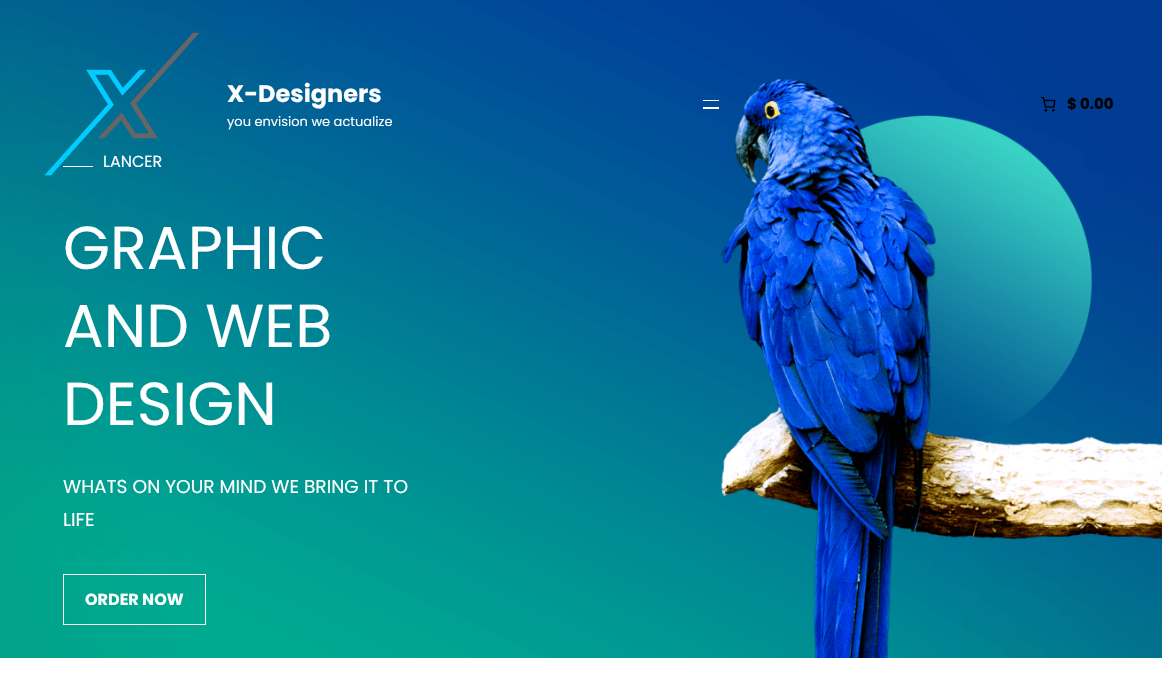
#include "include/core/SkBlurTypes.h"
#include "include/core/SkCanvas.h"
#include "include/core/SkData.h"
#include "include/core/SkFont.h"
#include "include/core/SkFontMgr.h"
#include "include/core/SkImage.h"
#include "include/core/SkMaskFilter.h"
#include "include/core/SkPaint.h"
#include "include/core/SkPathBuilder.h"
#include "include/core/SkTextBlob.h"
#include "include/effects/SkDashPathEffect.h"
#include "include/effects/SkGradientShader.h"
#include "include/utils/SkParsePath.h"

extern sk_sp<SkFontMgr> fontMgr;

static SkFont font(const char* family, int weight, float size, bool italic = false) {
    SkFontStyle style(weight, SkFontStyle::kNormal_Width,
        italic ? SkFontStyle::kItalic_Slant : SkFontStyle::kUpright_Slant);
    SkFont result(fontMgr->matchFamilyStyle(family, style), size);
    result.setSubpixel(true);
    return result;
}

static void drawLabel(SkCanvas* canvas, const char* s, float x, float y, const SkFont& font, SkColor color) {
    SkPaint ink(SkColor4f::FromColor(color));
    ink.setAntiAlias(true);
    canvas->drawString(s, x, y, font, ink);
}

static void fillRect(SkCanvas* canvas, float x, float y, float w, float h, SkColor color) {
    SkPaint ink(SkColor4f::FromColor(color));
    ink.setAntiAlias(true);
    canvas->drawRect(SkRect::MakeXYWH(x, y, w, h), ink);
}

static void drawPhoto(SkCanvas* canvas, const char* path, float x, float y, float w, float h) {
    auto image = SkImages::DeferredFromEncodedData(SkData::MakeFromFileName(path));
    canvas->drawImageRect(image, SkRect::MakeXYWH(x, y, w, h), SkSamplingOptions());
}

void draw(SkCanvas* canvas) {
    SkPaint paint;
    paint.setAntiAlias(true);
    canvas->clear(0xFFFFFFFF);
    drawPhoto(canvas, "assets/img3.png", 0, 0, 1162, 658);
    fillRect(canvas, 63, 166, 30, 1, 0xFFFEFEFE);
    SkFont font1 = font("Poppins", 400, 16);
    drawLabel(canvas, "LANCER", 103, 167, font1, 0xFFFEFEFE);
    drawPhoto(canvas, "assets/img1.png", 44, 32, 156, 144);
    SkFont font2 = font("Poppins", 700, 24);
    drawLabel(canvas, "X-Designers", 227, 102, font2, 0xFFFEFEFE);
    SkFont font3 = font("Poppins", 400, 13);
    drawLabel(canvas, "you envision we actualize", 227, 126, font3, 0xFFFEFEFE);
    fillRect(canvas, 703, 100, 16, 1, 0xFFFEFEFE);
    fillRect(canvas, 703, 107, 16, 2, 0xFFFEFEFE);
    drawPhoto(canvas, "assets/img2.png", 1041, 97, 15, 15);
    SkFont font4 = font("Poppins", 700, 15);
    drawLabel(canvas, "$ 0.00", 1067, 109, font4, 0xFF000000);
    SkFont font5 = font("Poppins", 400, 60.5f);
    drawLabel(canvas, "GRAPHIC", 63, 269, font5, 0xFFFEFEFE);
    drawLabel(canvas, "AND WEB", 63, 347, font5, 0xFFFEFEFE);
    drawLabel(canvas, "DESIGN", 63, 425, font5, 0xFFFEFEFE);
    SkFont font6 = font("Poppins", 400, 18.6f);
    drawLabel(canvas, "WHATS ON YOUR MIND WE BRING IT TO", 63, 493, font6, 0xFFFEFEFE);
    drawLabel(canvas, "LIFE", 63, 526, font6, 0xFFFEFEFE);
    paint.setStroke(true);
    paint.setStrokeWidth(1);
    paint.setColor(0xFFFEFEFE);
    canvas->drawRect(SkRect::MakeXYWH(63.5f, 574.5f, 142, 50), paint);
    SkFont font7 = font("Poppins", 700, 16);
    drawLabel(canvas, "ORDER NOW", 85, 605, font7, 0xFFFEFEFE);
}
